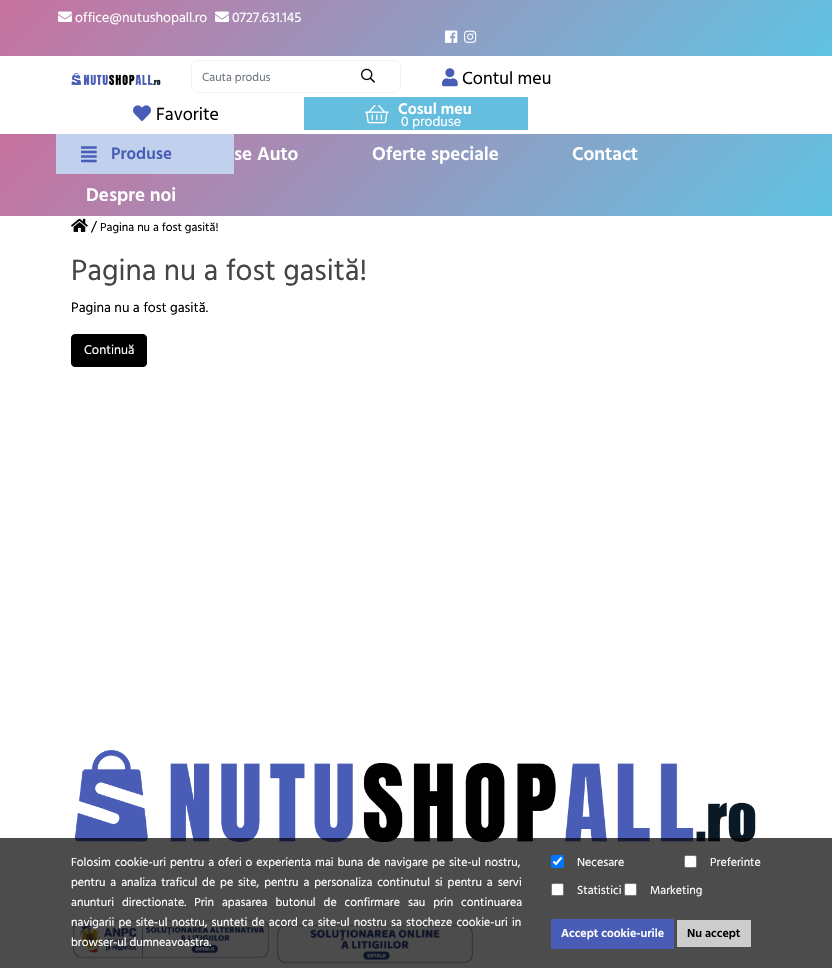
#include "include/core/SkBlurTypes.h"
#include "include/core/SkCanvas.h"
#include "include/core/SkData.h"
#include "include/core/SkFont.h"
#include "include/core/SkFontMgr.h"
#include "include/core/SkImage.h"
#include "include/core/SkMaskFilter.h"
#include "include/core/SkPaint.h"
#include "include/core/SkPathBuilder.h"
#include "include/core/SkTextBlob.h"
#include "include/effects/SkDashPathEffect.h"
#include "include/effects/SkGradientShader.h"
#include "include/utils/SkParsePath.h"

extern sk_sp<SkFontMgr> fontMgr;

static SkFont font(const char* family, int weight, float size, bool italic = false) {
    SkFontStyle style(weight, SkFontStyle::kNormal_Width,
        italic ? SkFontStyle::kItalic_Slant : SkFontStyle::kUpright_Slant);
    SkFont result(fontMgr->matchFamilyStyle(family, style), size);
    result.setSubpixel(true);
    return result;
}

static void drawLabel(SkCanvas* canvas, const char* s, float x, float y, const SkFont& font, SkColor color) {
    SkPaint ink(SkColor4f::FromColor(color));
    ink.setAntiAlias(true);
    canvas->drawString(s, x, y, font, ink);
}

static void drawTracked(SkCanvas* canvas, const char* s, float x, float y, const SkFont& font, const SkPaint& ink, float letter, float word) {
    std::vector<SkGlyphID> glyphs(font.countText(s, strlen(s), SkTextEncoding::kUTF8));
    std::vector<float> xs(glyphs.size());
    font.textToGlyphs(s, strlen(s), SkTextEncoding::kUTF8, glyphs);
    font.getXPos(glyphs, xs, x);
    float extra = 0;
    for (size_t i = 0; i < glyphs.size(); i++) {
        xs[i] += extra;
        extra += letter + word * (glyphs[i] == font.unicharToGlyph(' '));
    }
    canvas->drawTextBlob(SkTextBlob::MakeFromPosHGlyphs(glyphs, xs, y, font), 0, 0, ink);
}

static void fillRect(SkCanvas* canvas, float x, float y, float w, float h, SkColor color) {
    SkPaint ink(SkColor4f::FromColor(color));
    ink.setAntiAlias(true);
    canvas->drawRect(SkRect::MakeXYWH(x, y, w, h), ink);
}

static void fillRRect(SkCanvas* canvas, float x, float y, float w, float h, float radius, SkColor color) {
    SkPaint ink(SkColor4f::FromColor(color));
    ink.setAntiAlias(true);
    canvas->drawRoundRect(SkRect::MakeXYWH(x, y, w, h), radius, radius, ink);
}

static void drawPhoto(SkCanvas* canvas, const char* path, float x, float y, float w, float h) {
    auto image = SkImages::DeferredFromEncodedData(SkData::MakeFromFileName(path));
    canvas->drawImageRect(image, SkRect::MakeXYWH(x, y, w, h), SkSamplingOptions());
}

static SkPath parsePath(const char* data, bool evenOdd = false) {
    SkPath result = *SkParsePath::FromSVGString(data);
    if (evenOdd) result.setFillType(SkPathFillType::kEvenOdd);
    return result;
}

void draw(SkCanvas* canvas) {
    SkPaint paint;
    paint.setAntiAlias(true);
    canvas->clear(0xFFFFFFFF);
    {
        const SkColor colors[] = {0xFFC8719E, 0xFF5FC3E3};
        const float stops[] = {0, 1};
        const SkPoint ends[] = {{194, -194}, {638, 250}};
        paint.setShader(SkGradientShader::MakeLinear(ends, colors, stops, 2, SkTileMode::kClamp));
        paint.setAlpha(255);
    }
    canvas->drawRect(SkRect::MakeXYWH(0, 0, 832, 56), paint);
    drawPhoto(canvas, "assets/img1.png", 58, 11, 14, 11);
    SkFont font1 = font("Hind Madurai", 400, 14);
    drawLabel(canvas, "office@nutushopall.ro", 75, 22, font1, 0xFFFFFFFF);
    drawPhoto(canvas, "assets/img2.png", 215, 11, 14, 11);
    drawLabel(canvas, "0727.631.145", 232, 22, font1, 0xFFFFFFFF);
    drawPhoto(canvas, "assets/img3.png", 445, 30, 13, 13);
    drawPhoto(canvas, "assets/img4.png", 464, 30, 13, 13);
    drawPhoto(canvas, "assets/img5.png", 71, 73, 90, 12);
    paint.setStroke(true);
    paint.setStrokeWidth(1);
    paint.setShader(nullptr);
    paint.setColor(0xFFF3F3F3);
    canvas->drawRoundRect(SkRect::MakeXYWH(191.5f, 60.5f, 209, 32), 6.5f, 6.5f, paint);
    SkFont font2 = font("Hind Madurai", 400, 12);
    drawLabel(canvas, "Cauta produs", 202, 81, font2, 0xFF6C757D);
    drawPhoto(canvas, "assets/img6.png", 361, 68, 14, 15);
    drawPhoto(canvas, "assets/img7.png", 442, 68, 16, 19);
    SkFont font3 = font("Hind Madurai", 400, 18);
    drawLabel(canvas, "Contul meu", 462, 84, font3, 0xFF000000);
    drawPhoto(canvas, "assets/img8.png", 133, 105, 18, 17);
    drawLabel(canvas, "Favorite", 156, 120, font3, 0xFF000000);
    fillRect(canvas, 304, 97, 224, 33, 0xFF66BEDF);
    drawPhoto(canvas, "assets/img9.png", 365, 105, 24, 19);
    SkFont font4 = font("Hind Madurai", 600, 16);
    drawLabel(canvas, "Cosul meu", 398, 114, font4, 0xFFFFFFFF);
    drawLabel(canvas, "0 produse", 401, 126, font1, 0xFFFFFFFF);
    paint.setStroke(false);
    {
        const SkColor colors[] = {0xFFC8719E, 0xFF5FC3E3};
        const float stops[] = {0, 1};
        const SkPoint ends[] = {{187, -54}, {645, 404}};
        paint.setShader(SkGradientShader::MakeLinear(ends, colors, stops, 2, SkTileMode::kClamp));
        paint.setAlpha(255);
    }
    canvas->drawRect(SkRect::MakeXYWH(0, 134, 832, 82), paint);
    SkFont font5 = font("Hind Madurai", 600, 19);
    drawLabel(canvas, "se Auto", 234, 160, font5, 0xFFFFFFFF);
    drawLabel(canvas, "Oferte speciale", 372, 160, font5, 0xFFFFFFFF);
    drawLabel(canvas, "Contact", 572, 160, font5, 0xFFFFFFFF);
    drawLabel(canvas, "Despre noi", 86, 201, font5, 0xFFFFFFFF);
    fillRect(canvas, 56, 134, 178, 40, 0xFFC1D0ED);
    drawPhoto(canvas, "assets/img10.png", 81, 146, 16, 17);
    SkFont font6 = font("Hind Madurai", 600, 17);
    drawLabel(canvas, "Produse", 111, 159, font6, 0xFF485DB6);
    drawPhoto(canvas, "assets/img11.png", 71, 218, 17, 14);
    drawLabel(canvas, "/", 91, 231, font1, 0xFF000000);
    drawLabel(canvas, "Pagina nu a fost gasită!", 100, 231, font2, 0xFF000000);
    SkFont font7 = font("Hind Madurai", 400, 30);
    drawLabel(canvas, "Pagina nu a fost gasită!", 71, 280, font7, 0xFF444444);
    drawLabel(canvas, "Pagina nu a fost gasită.", 71, 312, font1, 0xFF000000);
    paint.setShader(nullptr);
    paint.setColor(0xFF000000);
    canvas->drawRoundRect(SkRect::MakeXYWH(71.5f, 334.5f, 75, 32), 3.5f, 3.5f, paint);
    paint.setStroke(true);
    canvas->drawRoundRect(SkRect::MakeXYWH(71.5f, 334.5f, 75, 32), 3.5f, 3.5f, paint);
    SkFont font8 = font("Hind Madurai", 400, 13);
    drawLabel(canvas, "Continuă", 84, 354, font8, 0xFFFFFFFF);
    drawPhoto(canvas, "assets/img12.png", 74, 750, 682, 92);
    drawPhoto(canvas, "assets/img13.png", 73, 919, 196, 40);
    drawPhoto(canvas, "assets/img14.png", 277, 924, 196, 40);
    fillRect(canvas, 0, 838, 832, 130, 0xB3000000);
    paint.setStroke(false);
    paint.setColor(0xFFFFFFFF);
    drawTracked(canvas, "Folosim cookie-uri pentru a oferi o experienta mai buna de navigare pe site-ul nostru,", 71, 866, font2, paint, 0, 1);
    drawTracked(canvas, "pentru a analiza traficul de pe site, pentru a personaliza continutul si pentru a servi", 71, 886, font2, paint, 0, 2);
    drawTracked(canvas, "anunturi directionate. Prin apasarea butonul de confirmare sau prin continuarea", 71, 906, font2, paint, 0, 5);
    drawTracked(canvas, "navigarii pe site-ul nostru, sunteti de acord ca site-ul nostru sa stocheze cookie-uri in", 71, 926, font2, paint, 0, 1.25f);
    drawLabel(canvas, "browser-ul dumneavoastra.", 71, 946, font2, 0xFFFFFFFF);
    fillRRect(canvas, 551, 855, 13, 13, 2, 0xFF0075FF);
    paint.setStroke(true);
    paint.setStrokeWidth(2.1f);
    canvas->drawPath(parsePath("M553.5 861.5L556 864L561.5 857.5"), paint);
    drawLabel(canvas, "Necesare", 577, 866, font2, 0xFFFFFFFF);
    paint.setStroke(false);
    canvas->drawRoundRect(SkRect::MakeXYWH(684.5f, 855.5f, 12, 12), 1.5f, 1.5f, paint);
    paint.setStroke(true);
    paint.setStrokeWidth(1);
    paint.setColor(0xFF767676);
    canvas->drawRoundRect(SkRect::MakeXYWH(684.5f, 855.5f, 12, 12), 1.5f, 1.5f, paint);
    drawLabel(canvas, "Preferinte", 710, 866, font2, 0xFFFFFFFF);
    paint.setStroke(false);
    paint.setColor(0xFFFFFFFF);
    canvas->drawRoundRect(SkRect::MakeXYWH(551.5f, 883.5f, 12, 12), 1.5f, 1.5f, paint);
    paint.setStroke(true);
    paint.setColor(0xFF767676);
    canvas->drawRoundRect(SkRect::MakeXYWH(551.5f, 883.5f, 12, 12), 1.5f, 1.5f, paint);
    drawLabel(canvas, "Statistici", 577, 894, font2, 0xFFFFFFFF);
    paint.setStroke(false);
    paint.setColor(0xFFFFFFFF);
    canvas->drawRoundRect(SkRect::MakeXYWH(624.5f, 883.5f, 12, 12), 1.5f, 1.5f, paint);
    paint.setStroke(true);
    paint.setColor(0xFF767676);
    canvas->drawRoundRect(SkRect::MakeXYWH(624.5f, 883.5f, 12, 12), 1.5f, 1.5f, paint);
    drawLabel(canvas, "Marketing", 650, 894, font2, 0xFFFFFFFF);
    fillRect(canvas, 551, 919, 123, 30, 0xFF495DB6);
    SkFont font9 = font("Hind Madurai", 600, 12);
    drawLabel(canvas, "Accept cookie-urile", 561, 937, font9, 0xFFFFFFFF);
    fillRect(canvas, 677, 920, 74, 27, 0xFFCCCCCC);
    drawLabel(canvas, "Nu accept", 687, 937, font9, 0xFF000000);
}
